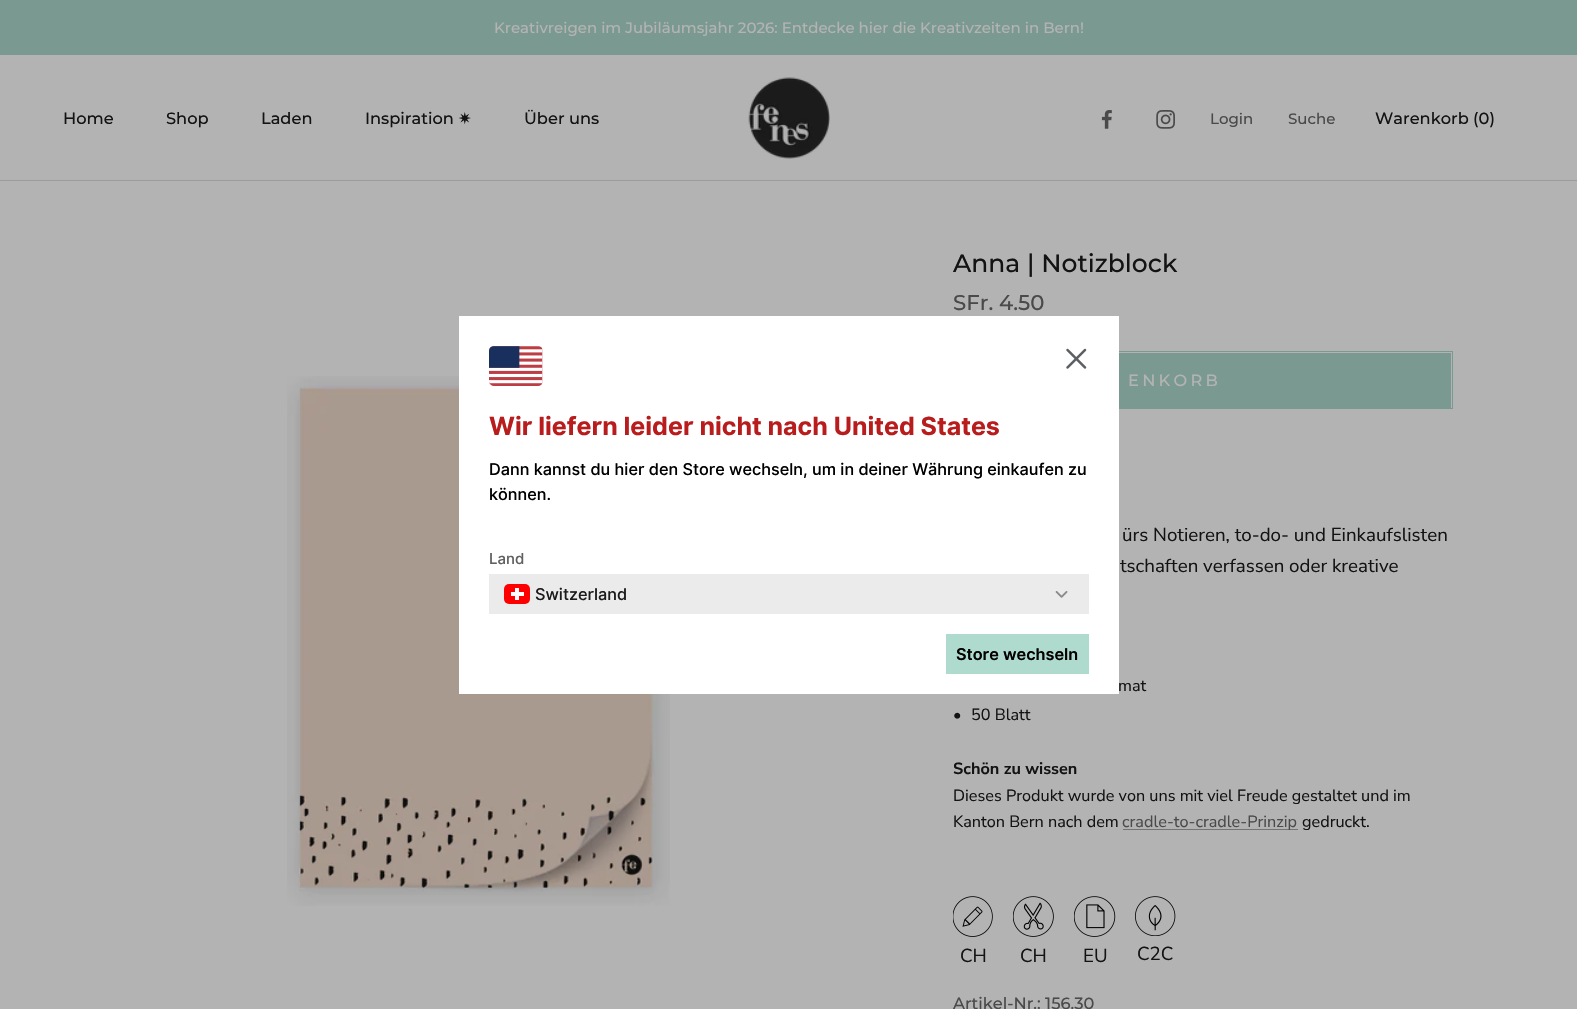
#include "include/core/SkBlurTypes.h"
#include "include/core/SkCanvas.h"
#include "include/core/SkData.h"
#include "include/core/SkFont.h"
#include "include/core/SkFontMgr.h"
#include "include/core/SkImage.h"
#include "include/core/SkMaskFilter.h"
#include "include/core/SkPaint.h"
#include "include/core/SkPathBuilder.h"
#include "include/core/SkTextBlob.h"
#include "include/effects/SkDashPathEffect.h"
#include "include/effects/SkGradientShader.h"
#include "include/utils/SkParsePath.h"

extern sk_sp<SkFontMgr> fontMgr;

static SkFont font(const char* family, int weight, float size, bool italic = false) {
    SkFontStyle style(weight, SkFontStyle::kNormal_Width,
        italic ? SkFontStyle::kItalic_Slant : SkFontStyle::kUpright_Slant);
    SkFont result(fontMgr->matchFamilyStyle(family, style), size);
    result.setSubpixel(true);
    return result;
}

static void drawLabel(SkCanvas* canvas, const char* s, float x, float y, const SkFont& font, SkColor color) {
    SkPaint ink(SkColor4f::FromColor(color));
    ink.setAntiAlias(true);
    canvas->drawString(s, x, y, font, ink);
}

static void drawTracked(SkCanvas* canvas, const char* s, float x, float y, const SkFont& font, const SkPaint& ink, float letter, float word) {
    std::vector<SkGlyphID> glyphs(font.countText(s, strlen(s), SkTextEncoding::kUTF8));
    std::vector<float> xs(glyphs.size());
    font.textToGlyphs(s, strlen(s), SkTextEncoding::kUTF8, glyphs);
    font.getXPos(glyphs, xs, x);
    float extra = 0;
    for (size_t i = 0; i < glyphs.size(); i++) {
        xs[i] += extra;
        extra += letter + word * (glyphs[i] == font.unicharToGlyph(' '));
    }
    canvas->drawTextBlob(SkTextBlob::MakeFromPosHGlyphs(glyphs, xs, y, font), 0, 0, ink);
}

static void fillRect(SkCanvas* canvas, float x, float y, float w, float h, SkColor color) {
    SkPaint ink(SkColor4f::FromColor(color));
    ink.setAntiAlias(true);
    canvas->drawRect(SkRect::MakeXYWH(x, y, w, h), ink);
}

static void fillRRect(SkCanvas* canvas, float x, float y, float w, float h, float radius, SkColor color) {
    SkPaint ink(SkColor4f::FromColor(color));
    ink.setAntiAlias(true);
    canvas->drawRoundRect(SkRect::MakeXYWH(x, y, w, h), radius, radius, ink);
}

static void drawPhoto(SkCanvas* canvas, const char* path, float x, float y, float w, float h) {
    auto image = SkImages::DeferredFromEncodedData(SkData::MakeFromFileName(path));
    canvas->drawImageRect(image, SkRect::MakeXYWH(x, y, w, h), SkSamplingOptions());
}

void draw(SkCanvas* canvas) {
    SkPaint paint;
    paint.setAntiAlias(true);
    canvas->clear(0xFFB3B3B3);
    fillRect(canvas, 0, 0, 1577, 55, 0xFF7A9990);
    SkFont font1 = font("Montserrat", 500, 15);
    drawLabel(canvas, "Kreativreigen im Jubiläumsjahr 2026: Entdecke hier die Kreativzeiten in Bern!", 494, 33, font1, 0xFFB3B3B3);
    fillRect(canvas, 0, 180, 1577, 1, 0xFF9B9B9B);
    SkFont font2 = font("Montserrat", 500, 16.25f);
    drawLabel(canvas, "Home", 63, 124, font2, 0xFF141313);
    drawLabel(canvas, "Shop", 166, 124, font2, 0xFF141313);
    drawLabel(canvas, "Laden", 261, 124, font2, 0xFF141313);
    drawLabel(canvas, "Inspiration", 365, 124, font2, 0xFF141313);
    SkFont font3 = font("DejaVu Sans", 400, 16.25f);
    drawLabel(canvas, "✷", 458, 124, font3, 0xFF141313);
    drawLabel(canvas, "Über uns", 524, 124, font2, 0xFF141313);
    drawPhoto(canvas, "assets/img1.png", 748, 77, 82, 82);
    drawPhoto(canvas, "assets/img2.png", 1101, 110, 11, 19);
    drawPhoto(canvas, "assets/img3.png", 1156, 110, 19, 19);
    drawLabel(canvas, "Login", 1210, 124, font1, 0xFF4A4A4A);
    drawLabel(canvas, "Suche", 1288, 124, font1, 0xFF4A4A4A);
    drawLabel(canvas, "Warenkorb (0)", 1375, 124, font2, 0xFF141313);
    drawPhoto(canvas, "assets/img4.png", 287, 376, 383, 530);
    SkFont font4 = font("Montserrat", 500, 25);
    drawLabel(canvas, "Anna | Notizblock", 953, 272, font4, 0xFF141313);
    SkFont font5 = font("Montserrat", 500, 21.25f);
    drawLabel(canvas, "SFr. 4.50", 953, 310, font5, 0xFF4A4A4A);
    paint.setStroke(true);
    paint.setStrokeWidth(1);
    paint.setColor(0xFF7A9990);
    canvas->drawRect(SkRect::MakeXYWH(953.5f, 351.5f, 499, 57), paint);
    fillRect(canvas, 1119, 353, 332, 55, 0xFF7A9990);
    paint.setStroke(false);
    paint.setColor(0xFFB3B3B3);
    drawTracked(canvas, "ENKORB", 1128, 386, font2, paint, 3.25f, 0);
    SkFont font6 = font("Nunito Sans", 400, 18.75f);
    drawLabel(canvas, "ürs Notieren, to-do- und Einkaufslisten", 1122, 541, font6, 0xFF141313);
    drawLabel(canvas, "tschaften verfassen oder kreative", 1120, 572, font6, 0xFF141313);
    SkFont font7 = font("Nunito Sans", 400, 16.25f);
    drawLabel(canvas, "mat", 1118, 691, font7, 0xFF141313);
    drawLabel(canvas, "•", 953, 720, font7, 0xFF141313);
    drawLabel(canvas, "50 Blatt", 971, 720, font7, 0xFF141313);
    SkFont font8 = font("Nunito Sans", 700, 16.25f);
    drawLabel(canvas, "Schön zu wissen", 953, 774, font8, 0xFF141313);
    drawLabel(canvas, "Dieses Produkt wurde von uns mit viel Freude gestaltet und im", 953, 801, font7, 0xFF141313);
    drawLabel(canvas, "Kanton Bern nach dem", 953, 827, font7, 0xFF141313);
    fillRect(canvas, 1123, 829, 175, 1, 0xFF747474);
    drawLabel(canvas, "cradle-to-cradle-Prinzip", 1122, 827, font7, 0xFF4A4A4A);
    drawLabel(canvas, "gedruckt.", 1302, 827, font7, 0xFF141313);
    drawPhoto(canvas, "assets/img5.png", 953, 896, 40, 41);
    drawLabel(canvas, "CH", 960, 962, font6, 0xFF141313);
    drawPhoto(canvas, "assets/img6.png", 1013, 896, 41, 41);
    drawLabel(canvas, "CH", 1020, 962, font6, 0xFF141313);
    drawPhoto(canvas, "assets/img7.png", 1074, 896, 42, 41);
    drawLabel(canvas, "EU", 1083, 962, font6, 0xFF141313);
    drawPhoto(canvas, "assets/img8.png", 1135, 896, 41, 40);
    drawLabel(canvas, "C2C", 1137, 960, font6, 0xFF141313);
    drawLabel(canvas, "Artikel-Nr.: 156.30", 953, 1009, font2, 0xFF4A4A4A);
    fillRect(canvas, 459, 316, 660, 378, 0xFFFFFFFF);
    drawPhoto(canvas, "assets/img9.png", 489, 346, 54, 40);
    drawPhoto(canvas, "assets/img10.png", 1066, 348, 21, 21);
    SkFont font9 = font("Inter", 700, 25);
    drawLabel(canvas, "Wir liefern leider nicht nach United States", 489, 435, font9, 0xFFB81C1C);
    SkFont font10 = font("Inter", 500, 16.25f);
    drawLabel(canvas, "Dann kannst du hier den Store wechseln, um in deiner Währung einkaufen zu", 489, 475, font10, 0xFF000000);
    drawLabel(canvas, "können.", 489, 500, font10, 0xFF000000);
    SkFont font11 = font("Inter", 500, 15);
    drawLabel(canvas, "Land", 489, 564, font11, 0xFF615F5F);
    fillRect(canvas, 489, 574, 600, 40, 0xFFEBEBEB);
    fillRRect(canvas, 504, 584, 26, 20, 5, 0xFFFF0000);
    fillRect(canvas, 511, 592, 13, 4, 0xFFFFFFFF);
    fillRect(canvas, 515, 588, 4, 12, 0xFFFFFFFF);
    drawLabel(canvas, "Switzerland", 535, 600, font10, 0xFF1C1B1B);
    drawPhoto(canvas, "assets/img11.png", 1055, 591, 13, 7);
    fillRect(canvas, 946, 634, 143, 40, 0xFFAFDBCE);
    SkFont font12 = font("Inter", 600, 16.25f);
    drawLabel(canvas, "Store wechseln", 956, 660, font12, 0xFF000000);
}
